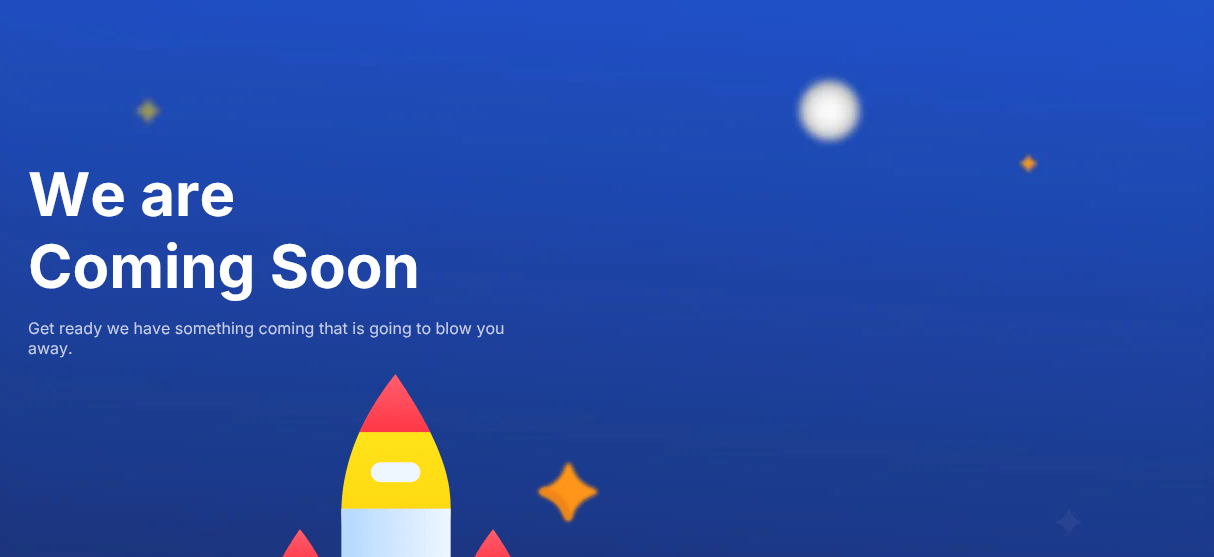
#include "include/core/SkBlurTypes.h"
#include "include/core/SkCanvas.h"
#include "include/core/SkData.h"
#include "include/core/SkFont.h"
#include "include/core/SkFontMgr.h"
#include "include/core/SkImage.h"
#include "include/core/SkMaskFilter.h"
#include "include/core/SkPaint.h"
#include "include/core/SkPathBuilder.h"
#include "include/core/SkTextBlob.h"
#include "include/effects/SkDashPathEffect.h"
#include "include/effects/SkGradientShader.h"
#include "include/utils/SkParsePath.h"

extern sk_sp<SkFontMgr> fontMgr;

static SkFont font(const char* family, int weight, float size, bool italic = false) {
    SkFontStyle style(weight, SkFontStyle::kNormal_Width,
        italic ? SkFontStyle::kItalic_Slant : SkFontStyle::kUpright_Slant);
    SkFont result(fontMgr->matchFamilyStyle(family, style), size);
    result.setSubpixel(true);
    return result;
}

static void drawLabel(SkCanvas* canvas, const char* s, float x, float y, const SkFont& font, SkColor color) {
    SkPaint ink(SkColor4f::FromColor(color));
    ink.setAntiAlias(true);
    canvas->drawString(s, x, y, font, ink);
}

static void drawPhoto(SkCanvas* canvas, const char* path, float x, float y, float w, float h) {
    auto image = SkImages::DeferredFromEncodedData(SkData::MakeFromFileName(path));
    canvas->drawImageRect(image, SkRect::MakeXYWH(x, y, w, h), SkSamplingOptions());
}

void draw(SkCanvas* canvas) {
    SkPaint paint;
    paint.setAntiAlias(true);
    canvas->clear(0xFFFFFFFF);
    drawPhoto(canvas, "assets/img1.png", 0, 0, 1214, 557);
    drawPhoto(canvas, "assets/img2.png", 8, 8, 1198, 549);
    SkFont font1 = font("Inter", 700, 60);
    drawLabel(canvas, "We are", 28, 216, font1, 0xFFFFFFFF);
    drawLabel(canvas, "Coming Soon", 28, 288, font1, 0xFFFFFFFF);
    SkFont font2 = font("Inter", 400, 16);
    drawLabel(canvas, "Get ready we have something coming that is going to blow you", 28, 334, font2, 0xFFC7CFE6);
    drawLabel(canvas, "away.", 28, 354, font2, 0xFFC7CFE6);
    drawPhoto(canvas, "assets/img3.png", 282, 374, 318, 183);
}
